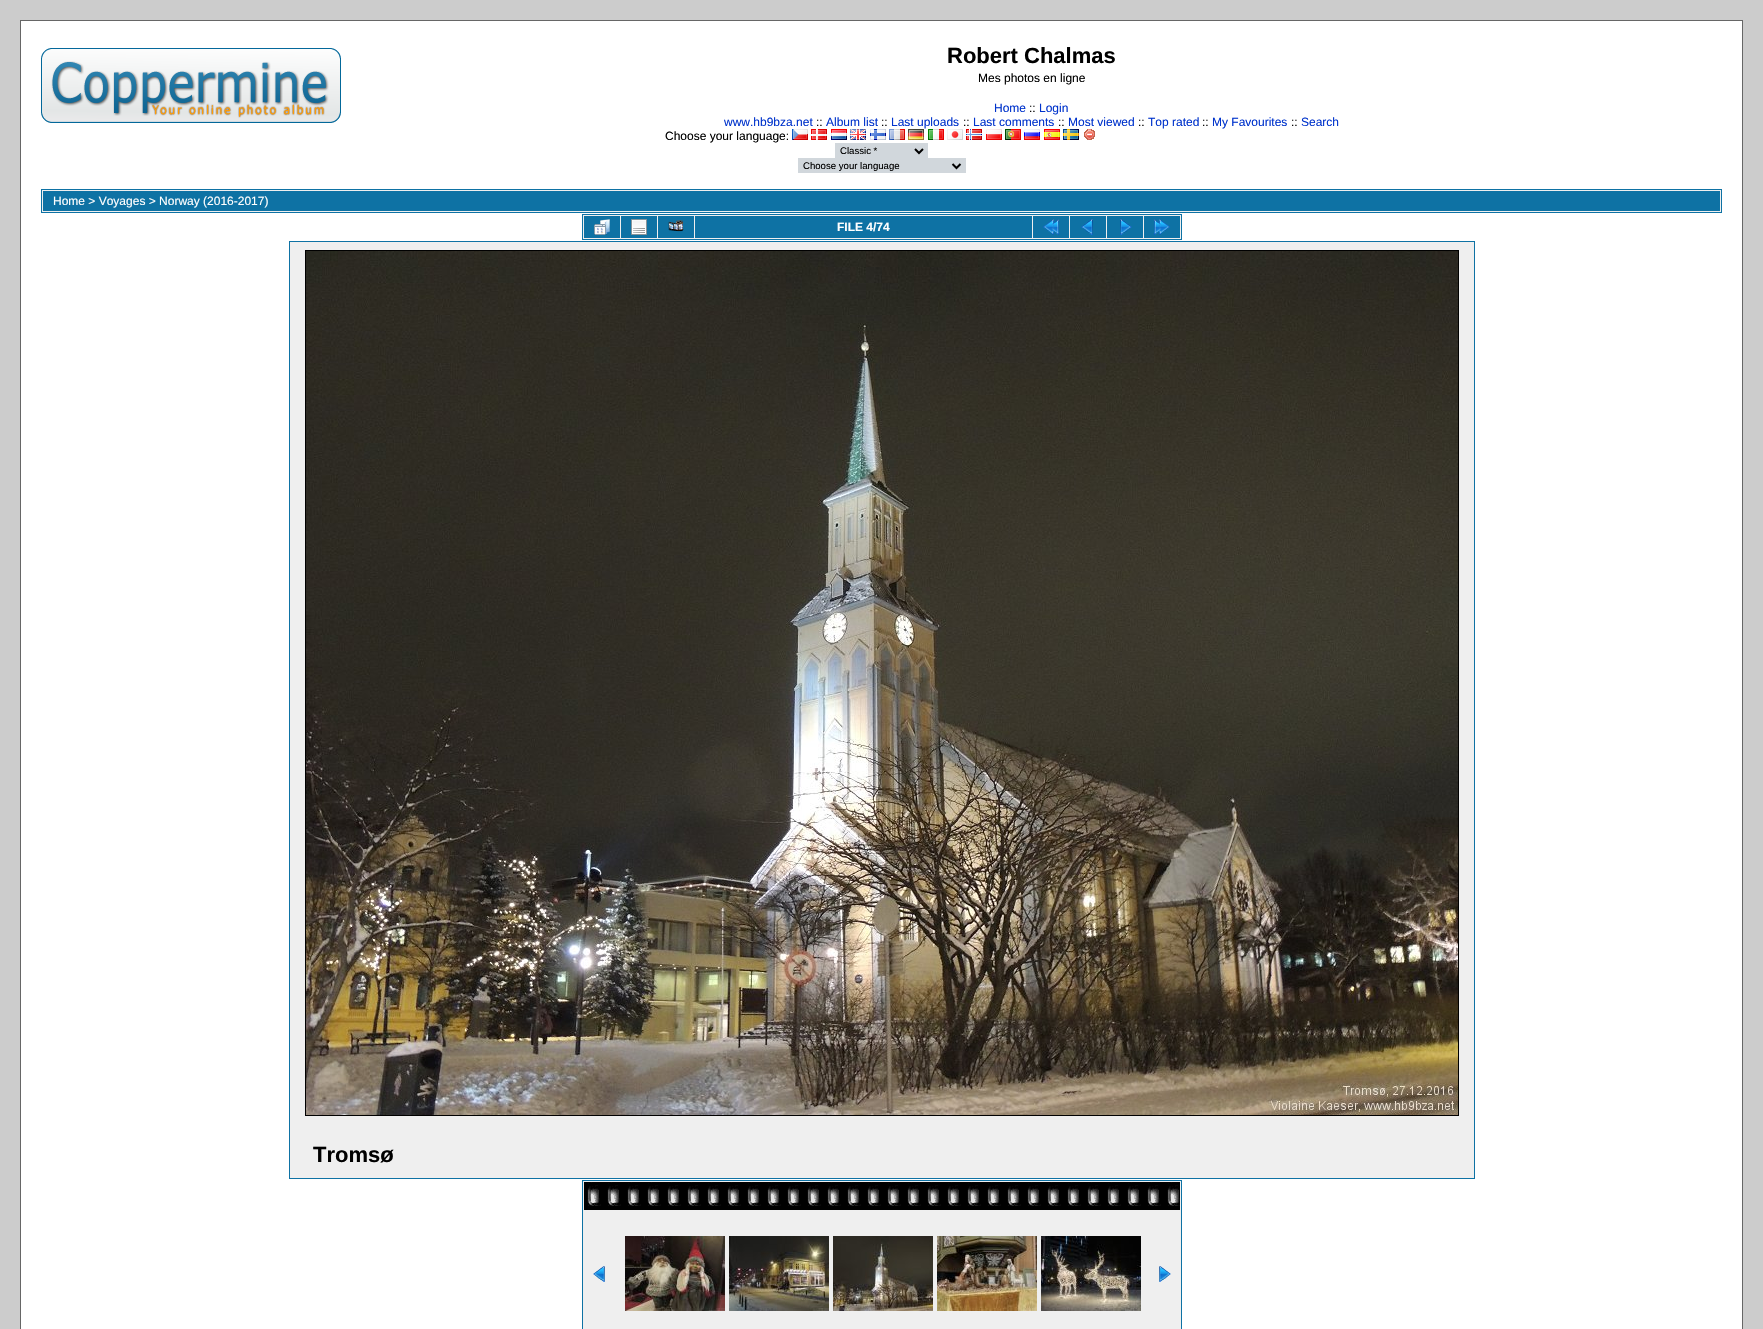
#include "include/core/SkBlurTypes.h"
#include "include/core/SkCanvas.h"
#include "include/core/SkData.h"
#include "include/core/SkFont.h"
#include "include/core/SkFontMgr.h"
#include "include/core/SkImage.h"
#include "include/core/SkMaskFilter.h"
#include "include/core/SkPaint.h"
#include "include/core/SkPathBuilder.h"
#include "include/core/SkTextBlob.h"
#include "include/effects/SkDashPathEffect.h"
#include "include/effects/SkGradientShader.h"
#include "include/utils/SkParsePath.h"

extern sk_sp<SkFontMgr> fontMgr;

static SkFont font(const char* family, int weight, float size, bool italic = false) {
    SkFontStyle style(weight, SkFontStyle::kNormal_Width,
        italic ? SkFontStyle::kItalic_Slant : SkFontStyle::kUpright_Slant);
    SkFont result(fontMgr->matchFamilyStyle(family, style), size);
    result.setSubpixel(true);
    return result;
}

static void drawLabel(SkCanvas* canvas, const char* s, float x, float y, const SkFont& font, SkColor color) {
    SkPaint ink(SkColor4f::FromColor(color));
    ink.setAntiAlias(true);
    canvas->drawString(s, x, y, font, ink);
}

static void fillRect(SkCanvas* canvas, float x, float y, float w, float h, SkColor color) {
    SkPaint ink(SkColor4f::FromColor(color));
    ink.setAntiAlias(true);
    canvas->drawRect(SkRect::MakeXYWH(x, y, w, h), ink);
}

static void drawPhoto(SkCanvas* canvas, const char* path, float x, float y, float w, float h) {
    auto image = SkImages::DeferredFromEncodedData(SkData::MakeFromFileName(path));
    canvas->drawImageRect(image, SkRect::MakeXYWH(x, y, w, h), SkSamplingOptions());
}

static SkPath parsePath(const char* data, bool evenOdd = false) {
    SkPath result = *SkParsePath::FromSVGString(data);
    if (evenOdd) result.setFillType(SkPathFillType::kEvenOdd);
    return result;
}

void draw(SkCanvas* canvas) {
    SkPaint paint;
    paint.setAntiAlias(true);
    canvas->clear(0xFFCCCCCC);
    paint.setColor(0xFFFFFFFF);
    canvas->drawRect(SkRect::MakeXYWH(20.5f, 20.5f, 1722, 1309), paint);
    paint.setStroke(true);
    paint.setStrokeWidth(1);
    paint.setColor(0xFF666666);
    canvas->drawRect(SkRect::MakeXYWH(20.5f, 20.5f, 1722, 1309), paint);
    drawPhoto(canvas, "assets/img1.png", 41, 48, 300, 75);
    SkFont font1 = font("Liberation Sans", 700, 22);
    drawLabel(canvas, "Robert Chalmas", 947, 63, font1, 0xFF000000);
    SkFont font2 = font("Liberation Sans", 400, 12);
    drawLabel(canvas, "Mes photos en ligne", 978, 82, font2, 0xFF000000);
    drawLabel(canvas, "Home", 994, 112, font2, 0xFF0033CC);
    drawLabel(canvas, "::", 1029, 112, font2, 0xFF000000);
    drawLabel(canvas, "Login", 1039, 112, font2, 0xFF0033CC);
    drawLabel(canvas, "www.hb9bza.net", 724, 126, font2, 0xFF0033CC);
    drawLabel(canvas, "::", 816, 126, font2, 0xFF000000);
    drawLabel(canvas, "Album list", 826, 126, font2, 0xFF0033CC);
    drawLabel(canvas, "::", 881, 126, font2, 0xFF000000);
    drawLabel(canvas, "Last uploads", 891, 126, font2, 0xFF0033CC);
    drawLabel(canvas, "::", 963, 126, font2, 0xFF000000);
    drawLabel(canvas, "Last comments", 973, 126, font2, 0xFF0033CC);
    drawLabel(canvas, "::", 1058, 126, font2, 0xFF000000);
    drawLabel(canvas, "Most viewed", 1068, 126, font2, 0xFF0033CC);
    drawLabel(canvas, "::", 1138, 126, font2, 0xFF000000);
    drawLabel(canvas, "Top rated", 1148, 126, font2, 0xFF0033CC);
    drawLabel(canvas, "::", 1202, 126, font2, 0xFF000000);
    drawLabel(canvas, "My Favourites", 1212, 126, font2, 0xFF0033CC);
    drawLabel(canvas, "::", 1291, 126, font2, 0xFF000000);
    drawLabel(canvas, "Search", 1301, 126, font2, 0xFF0033CC);
    drawLabel(canvas, "Choose your language:", 665, 140, font2, 0xFF000000);
    drawPhoto(canvas, "assets/img2.png", 792, 129, 16, 11);
    drawPhoto(canvas, "assets/img3.png", 811, 129, 16, 11);
    drawPhoto(canvas, "assets/img4.png", 831, 129, 16, 11);
    drawPhoto(canvas, "assets/img5.png", 850, 129, 16, 11);
    drawPhoto(canvas, "assets/img6.png", 870, 129, 16, 11);
    drawPhoto(canvas, "assets/img7.png", 889, 129, 16, 11);
    drawPhoto(canvas, "assets/img8.png", 908, 129, 16, 11);
    drawPhoto(canvas, "assets/img9.png", 928, 129, 16, 11);
    drawPhoto(canvas, "assets/img10.png", 947, 129, 16, 11);
    drawPhoto(canvas, "assets/img11.png", 966, 129, 16, 11);
    drawPhoto(canvas, "assets/img12.png", 986, 129, 16, 11);
    drawPhoto(canvas, "assets/img13.png", 1005, 129, 16, 11);
    drawPhoto(canvas, "assets/img14.png", 1024, 129, 16, 11);
    drawPhoto(canvas, "assets/img15.png", 1044, 129, 16, 11);
    drawPhoto(canvas, "assets/img16.png", 1063, 129, 16, 11);
    drawPhoto(canvas, "assets/img17.png", 1084, 129, 11, 11);
    fillRect(canvas, 835, 143, 93, 15, 0xFFD1D7DC);
    paint.setStrokeWidth(2);
    paint.setColor(0xFF000000);
    canvas->drawPath(parsePath("M915 149L919 153L923 149"), paint);
    SkFont font3 = font("Liberation Sans", 400, 9.6f);
    drawLabel(canvas, "Classic *", 840, 154, font3, 0xFF000000);
    fillRect(canvas, 798, 158, 168, 15, 0xFFD1D7DC);
    canvas->drawPath(parsePath("M952.5 164L956.5 168L960.5 164"), paint);
    drawLabel(canvas, "Choose your language", 803, 169, font3, 0xFF000000);
    paint.setStroke(false);
    paint.setColor(0xFFEFEFEF);
    canvas->drawRect(SkRect::MakeXYWH(41.5f, 189.5f, 1680, 23), paint);
    paint.setStroke(true);
    paint.setStrokeWidth(1);
    paint.setColor(0xFF0E72A4);
    canvas->drawRect(SkRect::MakeXYWH(41.5f, 189.5f, 1680, 23), paint);
    fillRect(canvas, 43, 191, 1677, 20, 0xFF0E72A4);
    drawLabel(canvas, "Home > Voyages > Norway (2016-2017)", 53, 205, font2, 0xFFFFFFFF);
    paint.setStroke(false);
    paint.setColor(0xFFEFEFEF);
    canvas->drawRect(SkRect::MakeXYWH(582.5f, 214.5f, 599, 25), paint);
    paint.setStroke(true);
    paint.setColor(0xFF0E72A4);
    canvas->drawRect(SkRect::MakeXYWH(582.5f, 214.5f, 599, 25), paint);
    fillRect(canvas, 584, 216, 36, 22, 0xFF0E72A4);
    drawPhoto(canvas, "assets/img18.png", 594, 219, 16, 16);
    fillRect(canvas, 621, 216, 36, 22, 0xFF0E72A4);
    drawPhoto(canvas, "assets/img19.png", 631, 219, 16, 16);
    fillRect(canvas, 658, 216, 36, 22, 0xFF0E72A4);
    drawPhoto(canvas, "assets/img20.png", 668, 220, 16, 12);
    fillRect(canvas, 695, 216, 337, 22, 0xFF0E72A4);
    SkFont font4 = font("Liberation Sans", 700, 12);
    drawLabel(canvas, "FILE 4/74", 837, 231, font4, 0xFFFFFFFF);
    fillRect(canvas, 1033, 216, 36, 22, 0xFF0E72A4);
    drawPhoto(canvas, "assets/img21.png", 1043, 219, 16, 16);
    fillRect(canvas, 1070, 216, 36, 22, 0xFF0E72A4);
    drawPhoto(canvas, "assets/img22.png", 1081, 219, 12, 16);
    fillRect(canvas, 1107, 216, 36, 22, 0xFF0E72A4);
    drawPhoto(canvas, "assets/img23.png", 1120, 219, 12, 16);
    fillRect(canvas, 1144, 216, 36, 22, 0xFF0E72A4);
    drawPhoto(canvas, "assets/img24.png", 1154, 219, 16, 16);
    paint.setStroke(false);
    paint.setColor(0xFFEFEFEF);
    canvas->drawRect(SkRect::MakeXYWH(289.5f, 241.5f, 1185, 937), paint);
    paint.setStroke(true);
    paint.setColor(0xFF0E72A4);
    canvas->drawRect(SkRect::MakeXYWH(289.5f, 241.5f, 1185, 937), paint);
    paint.setColor(0xFF000000);
    canvas->drawRect(SkRect::MakeXYWH(305.5f, 250.5f, 1153, 865), paint);
    drawPhoto(canvas, "assets/img25.png", 306, 251, 1152, 864);
    drawLabel(canvas, "Tromsø", 313, 1162, font1, 0xFF000000);
    paint.setStroke(false);
    paint.setColor(0xFFEFEFEF);
    canvas->drawRect(SkRect::MakeXYWH(582.5f, 1180.5f, 599, 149), paint);
    paint.setStroke(true);
    paint.setColor(0xFF0E72A4);
    canvas->drawRect(SkRect::MakeXYWH(582.5f, 1180.5f, 599, 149), paint);
    drawPhoto(canvas, "assets/img26.png", 584, 1182, 596, 28);
    drawPhoto(canvas, "assets/img27.png", 593, 1266, 12, 16);
    drawPhoto(canvas, "assets/img28.png", 625, 1236, 100, 75);
    drawPhoto(canvas, "assets/img29.png", 729, 1236, 100, 75);
    drawPhoto(canvas, "assets/img30.png", 833, 1236, 100, 75);
    drawPhoto(canvas, "assets/img31.png", 937, 1236, 100, 75);
    drawPhoto(canvas, "assets/img32.png", 1041, 1236, 100, 75);
    drawPhoto(canvas, "assets/img33.png", 1159, 1266, 12, 16);
}
